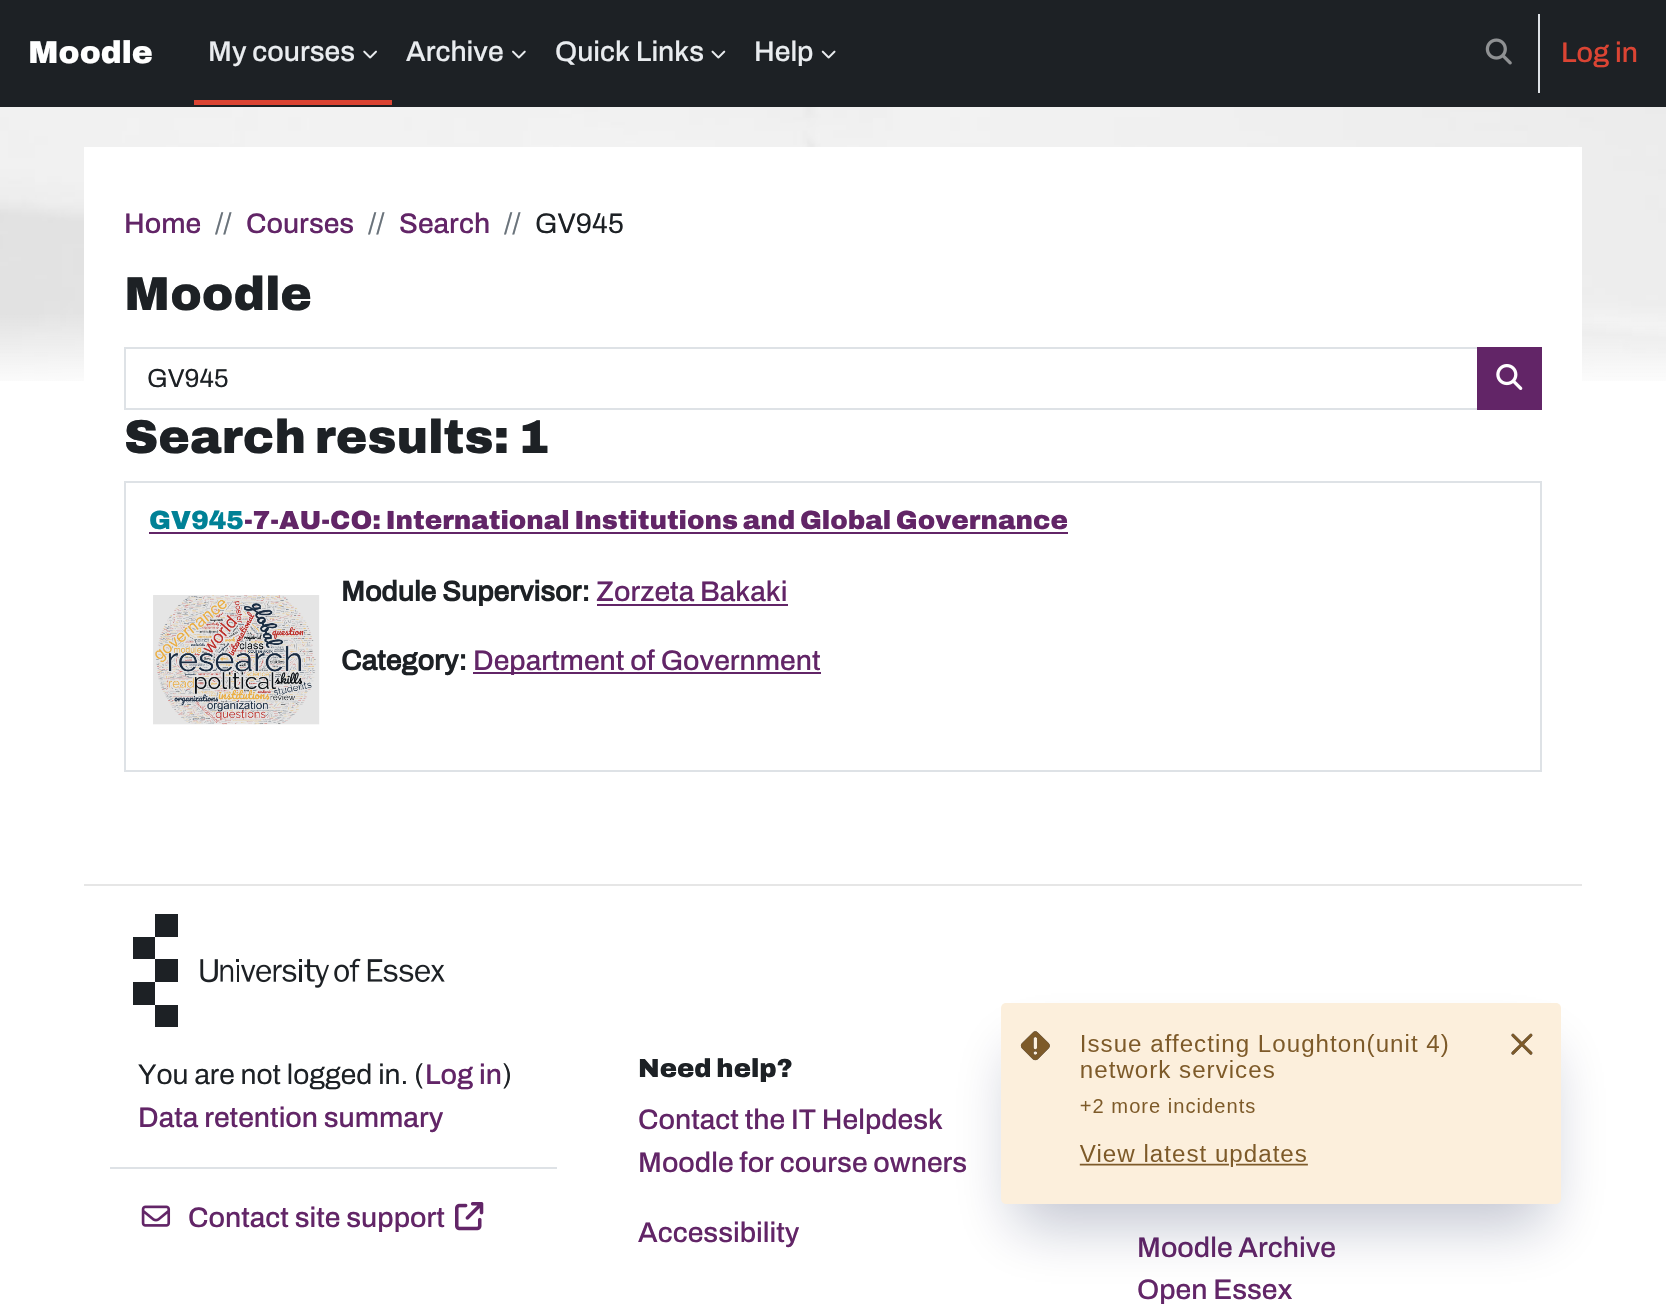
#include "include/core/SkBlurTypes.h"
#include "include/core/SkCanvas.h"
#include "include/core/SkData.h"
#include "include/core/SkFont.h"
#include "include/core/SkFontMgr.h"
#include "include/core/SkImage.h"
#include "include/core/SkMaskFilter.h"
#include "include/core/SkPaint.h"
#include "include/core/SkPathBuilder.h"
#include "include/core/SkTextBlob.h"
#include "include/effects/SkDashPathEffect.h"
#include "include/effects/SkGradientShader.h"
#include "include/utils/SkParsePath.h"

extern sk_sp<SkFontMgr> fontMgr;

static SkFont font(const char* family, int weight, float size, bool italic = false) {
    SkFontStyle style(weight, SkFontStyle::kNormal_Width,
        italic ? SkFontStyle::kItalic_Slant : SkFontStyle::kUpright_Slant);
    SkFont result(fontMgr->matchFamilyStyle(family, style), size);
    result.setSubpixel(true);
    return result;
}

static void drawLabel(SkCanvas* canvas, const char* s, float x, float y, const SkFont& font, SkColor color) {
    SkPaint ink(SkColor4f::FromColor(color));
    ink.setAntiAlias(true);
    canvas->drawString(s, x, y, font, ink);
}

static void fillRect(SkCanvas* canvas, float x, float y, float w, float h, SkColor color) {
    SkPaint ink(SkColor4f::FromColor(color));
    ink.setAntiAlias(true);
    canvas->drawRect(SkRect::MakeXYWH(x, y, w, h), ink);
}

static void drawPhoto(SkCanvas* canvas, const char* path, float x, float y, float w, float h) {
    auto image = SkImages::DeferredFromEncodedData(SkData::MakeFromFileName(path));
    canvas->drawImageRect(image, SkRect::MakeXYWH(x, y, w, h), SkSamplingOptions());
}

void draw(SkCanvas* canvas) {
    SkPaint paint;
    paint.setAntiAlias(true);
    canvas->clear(0xFFFFFFFF);
    fillRect(canvas, 0, 0, 1666, 107, 0xFF1D2125);
    SkFont font1 = font("Archivo", 900, 31.5f);
    drawLabel(canvas, "Moodle", 28, 63, font1, 0xFFFFFFFF);
    fillRect(canvas, 194, 100, 198, 5, 0xFFDB4433);
    SkFont font2 = font("Archivo", 500, 28.25f);
    drawLabel(canvas, "My courses", 208, 61, font2, 0xFFE9ECEF);
    drawPhoto(canvas, "assets/img1.png", 363, 50, 14, 9);
    drawLabel(canvas, "Archive", 406, 61, font2, 0xFFE9ECEF);
    drawPhoto(canvas, "assets/img2.png", 512, 50, 14, 9);
    drawLabel(canvas, "Quick Links", 555, 61, font2, 0xFFE9ECEF);
    drawPhoto(canvas, "assets/img3.png", 711, 50, 15, 9);
    drawLabel(canvas, "Help", 754, 61, font2, 0xFFE9ECEF);
    drawPhoto(canvas, "assets/img4.png", 821, 50, 15, 9);
    drawPhoto(canvas, "assets/img5.png", 1485, 38, 27, 27);
    fillRect(canvas, 1538, 14, 2, 79, 0xFFDEE2E6);
    drawLabel(canvas, "Log in", 1561, 62, font2, 0xFFDB4433);
    drawPhoto(canvas, "assets/img6.png", 0, 107, 1666, 274);
    fillRect(canvas, 84, 147, 1498, 234, 0xFFFFFFFF);
    drawLabel(canvas, "Home", 124, 233, font2, 0xFF622567);
    SkFont font3 = font("Archivo", 400, 28.25f);
    drawLabel(canvas, "//", 215, 233, font3, 0xFF6A737B);
    drawLabel(canvas, "Courses", 246, 233, font2, 0xFF622567);
    drawLabel(canvas, "//", 368, 233, font3, 0xFF6A737B);
    drawLabel(canvas, "Search", 399, 233, font2, 0xFF622567);
    drawLabel(canvas, "//", 504, 233, font3, 0xFF6A737B);
    drawLabel(canvas, "GV945", 535, 233, font3, 0xFF1D2125);
    SkFont font4 = font("Archivo", 900, 47.5f);
    drawLabel(canvas, "Moodle", 124, 310, font4, 0xFF1D2125);
    paint.setStroke(true);
    paint.setStrokeWidth(2);
    paint.setColor(0xFFDEE2E6);
    canvas->drawRect(SkRect::MakeXYWH(125, 348, 1353, 61), paint);
    SkFont font5 = font("Archivo", 400, 26);
    drawLabel(canvas, "GV945", 147, 387, font5, 0xFF1D2125);
    fillRect(canvas, 1477, 347, 65, 63, 0xFF622567);
    drawPhoto(canvas, "assets/img7.png", 1496, 364, 27, 26);
    drawLabel(canvas, "Search results: 1", 124, 453, font4, 0xFF1D2125);
    canvas->drawRect(SkRect::MakeXYWH(125, 482, 1416, 289), paint);
    SkFont font6 = font("Archivo", 900, 26.25f);
    drawLabel(canvas, "GV945", 149, 529, font6, 0xFF008196);
    fillRect(canvas, 149, 532, 919, 2, 0xFF622567);
    drawLabel(canvas, "-7-AU-CO: International Institutions and Global Governance", 244, 529, font6, 0xFF622567);
    drawPhoto(canvas, "assets/img8.png", 153, 595, 167, 130);
    SkFont font7 = font("Archivo", 700, 28.25f);
    drawLabel(canvas, "Module Supervisor:", 341, 601, font7, 0xFF1D2125);
    drawLabel(canvas, "Zorzeta Bakaki", 596, 601, font2, 0xFF622567);
    fillRect(canvas, 597, 604, 191, 2, 0xFF622567);
    drawLabel(canvas, "Category:", 341, 670, font7, 0xFF1D2125);
    fillRect(canvas, 473, 672, 348, 2, 0xFF622567);
    drawLabel(canvas, "Department of Government", 473, 670, font2, 0xFF622567);
    fillRect(canvas, 84, 884, 1498, 2, 0xFFE6E6E6);
    drawPhoto(canvas, "assets/img9.png", 133, 914, 312, 113);
    fillRect(canvas, 110, 1167, 447, 2, 0xFFDEE2E6);
    drawLabel(canvas, "You are not logged in. (", 138, 1084, font3, 0xFF1D2125);
    drawLabel(canvas, "Log in", 425, 1084, font2, 0xFF622567);
    drawLabel(canvas, ")", 502, 1084, font3, 0xFF1D2125);
    drawLabel(canvas, "Data retention summary", 138, 1127, font2, 0xFF622567);
    drawPhoto(canvas, "assets/img10.png", 141, 1205, 30, 22);
    drawLabel(canvas, "Contact site support", 188, 1227, font2, 0xFF622567);
    drawPhoto(canvas, "assets/img11.png", 455, 1202, 29, 29);
    SkFont font8 = font("Archivo", 900, 26);
    drawLabel(canvas, "Need help?", 638, 1077, font8, 0xFF1D2125);
    drawLabel(canvas, "Contact the IT Helpdesk", 638, 1129, font2, 0xFF622567);
    drawLabel(canvas, "Moodle for course owners", 638, 1172, font2, 0xFF622567);
    drawLabel(canvas, "Accessibility", 638, 1242, font2, 0xFF622567);
    drawLabel(canvas, "Moodle Archive", 1137, 1257, font2, 0xFF622567);
    drawLabel(canvas, "Open Essex", 1137, 1299, font2, 0xFF622567);
    paint.setStroke(false);
    paint.setColor(0x40091442);
    paint.setMaskFilter(SkMaskFilter::MakeBlur(kNormal_SkBlurStyle, 28));
    canvas->drawRect(SkRect::MakeXYWH(1015, 1052, 532, 173), paint);
    paint.setMaskFilter(nullptr);
    drawPhoto(canvas, "assets/img12.png", 1001, 1003, 560, 201);
}
